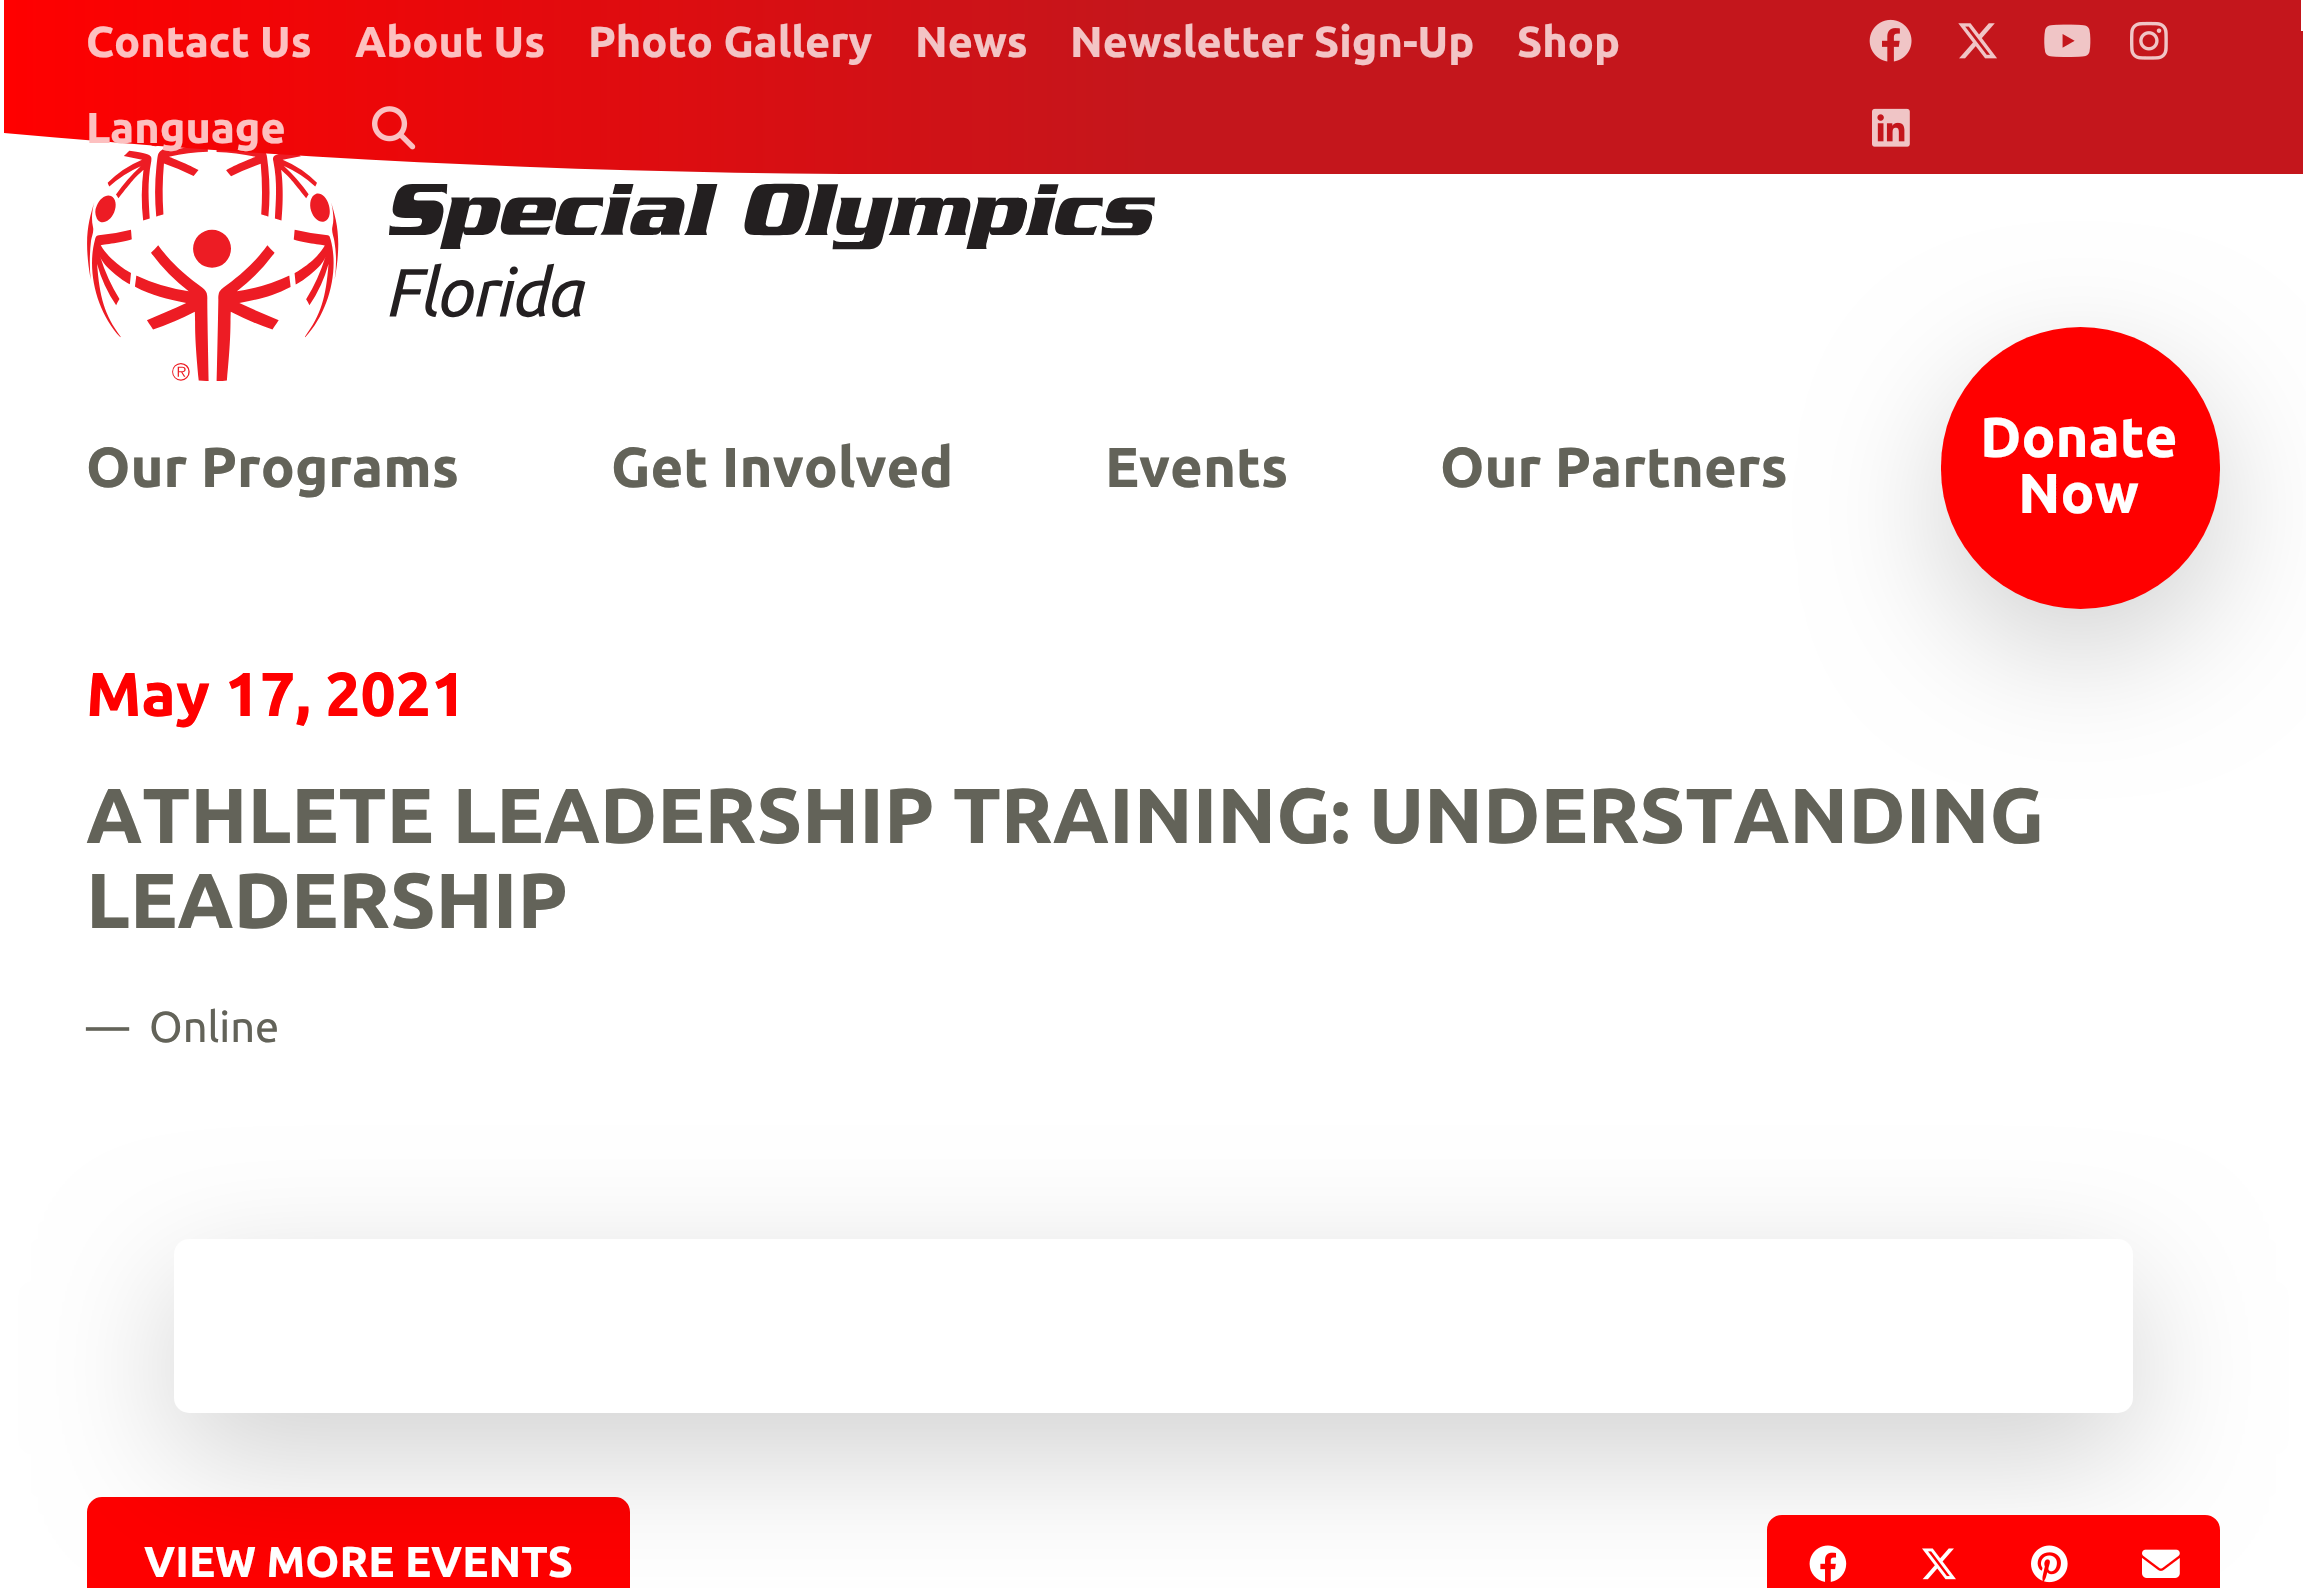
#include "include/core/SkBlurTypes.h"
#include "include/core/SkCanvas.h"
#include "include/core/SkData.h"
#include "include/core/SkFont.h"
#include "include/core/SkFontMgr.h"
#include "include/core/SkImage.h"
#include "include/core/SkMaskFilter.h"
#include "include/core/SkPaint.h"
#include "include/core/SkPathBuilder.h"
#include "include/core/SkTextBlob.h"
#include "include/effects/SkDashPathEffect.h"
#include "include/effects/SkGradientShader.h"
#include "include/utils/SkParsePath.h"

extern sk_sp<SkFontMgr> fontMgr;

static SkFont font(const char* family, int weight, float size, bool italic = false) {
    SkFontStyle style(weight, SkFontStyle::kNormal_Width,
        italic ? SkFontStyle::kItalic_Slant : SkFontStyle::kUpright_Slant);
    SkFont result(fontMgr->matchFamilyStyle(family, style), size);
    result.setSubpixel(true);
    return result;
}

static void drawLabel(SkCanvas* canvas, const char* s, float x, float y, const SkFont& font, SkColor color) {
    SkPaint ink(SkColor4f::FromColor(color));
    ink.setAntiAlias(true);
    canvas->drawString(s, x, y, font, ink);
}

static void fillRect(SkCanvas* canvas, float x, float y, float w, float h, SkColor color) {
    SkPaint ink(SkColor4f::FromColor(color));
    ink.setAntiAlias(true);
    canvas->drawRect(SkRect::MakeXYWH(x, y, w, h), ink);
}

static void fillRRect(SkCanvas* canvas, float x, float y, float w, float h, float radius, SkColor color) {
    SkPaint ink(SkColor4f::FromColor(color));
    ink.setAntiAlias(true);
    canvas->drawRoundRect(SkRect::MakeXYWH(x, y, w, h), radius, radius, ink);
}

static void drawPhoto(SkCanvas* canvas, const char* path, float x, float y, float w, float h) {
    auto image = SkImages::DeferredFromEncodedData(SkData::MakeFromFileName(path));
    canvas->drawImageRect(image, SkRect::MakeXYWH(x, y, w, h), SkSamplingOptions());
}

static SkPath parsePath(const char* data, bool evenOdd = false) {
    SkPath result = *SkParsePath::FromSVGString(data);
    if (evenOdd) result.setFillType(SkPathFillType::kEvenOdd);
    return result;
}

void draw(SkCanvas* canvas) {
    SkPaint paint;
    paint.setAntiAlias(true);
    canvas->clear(0xFFFFFFFF);
    paint.setColor(0x2E000000);
    paint.setMaskFilter(SkMaskFilter::MakeBlur(kNormal_SkBlurStyle, 65));
    canvas->drawRoundRect(SkRect::MakeXYWH(1941, 369, 279, 282), 139.5f, 139.5f, paint);
    paint.setMaskFilter(nullptr);
    drawPhoto(canvas, "assets/img7.png", 87, 145, 1068, 236);
    {
        const SkColor colors[] = {0xFFC4161C, 0xFFFF0000};
        const float stops[] = {0.5f, 1};
        const SkPoint ends[] = {{2302, -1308}, {6.7f, -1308}};
        paint.setShader(SkGradientShader::MakeLinear(ends, colors, stops, 2, SkTileMode::kClamp));
        paint.setAlpha(255);
    }
    canvas->drawPath(parsePath("M4-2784V133C278 158 557 172 842 174H2303V31H2301V-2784Z"), paint);
    SkFont font1 = font("Ubuntu", 700, 43.25f);
    drawLabel(canvas, "Contact Us", 86, 57, font1, 0xFFFDC0C0);
    drawLabel(canvas, "About Us", 355, 57, font1, 0xFFFDC0C0);
    drawLabel(canvas, "Photo Gallery", 588, 57, font1, 0xFFF3C4C5);
    drawLabel(canvas, "News", 915, 57, font1, 0xFFF3C4C5);
    drawLabel(canvas, "Newsletter Sign-Up", 1070, 57, font1, 0xFFF3C4C5);
    drawLabel(canvas, "Shop", 1517, 57, font1, 0xFFF3C4C5);
    drawLabel(canvas, "Language", 86, 143, font1, 0xFFFDC0C0);
    drawPhoto(canvas, "assets/img1.png", 372, 106, 44, 44);
    drawPhoto(canvas, "assets/img2.png", 1869, 19, 43, 43);
    drawPhoto(canvas, "assets/img3.png", 1958, 23, 39, 36);
    drawPhoto(canvas, "assets/img4.png", 2044, 24, 47, 33);
    drawPhoto(canvas, "assets/img5.png", 2130, 21, 38, 39);
    drawPhoto(canvas, "assets/img6.png", 1872, 108, 38, 39);
    SkFont font2 = font("Ubuntu", 700, 56.25f);
    drawLabel(canvas, "Our Programs", 86, 487, font2, 0xFF636359);
    drawLabel(canvas, "Get Involved", 611, 487, font2, 0xFF636359);
    drawLabel(canvas, "Events", 1105, 487, font2, 0xFF636359);
    drawLabel(canvas, "Our Partners", 1440, 487, font2, 0xFF636359);
    fillRRect(canvas, 1941, 327, 279, 282, 139.5f, 0xFFFF0000);
    drawLabel(canvas, "Donate", 1980, 457, font2, 0xFFFFFFFF);
    drawLabel(canvas, "Now", 2018, 513, font2, 0xFFFFFFFF);
    SkFont font3 = font("Ubuntu", 700, 62);
    drawLabel(canvas, "May 17, 2021", 86, 716, font3, 0xFFFF0000);
    SkFont font4 = font("Ubuntu", 700, 78);
    drawLabel(canvas, "ATHLETE LEADERSHIP TRAINING: UNDERSTANDING", 86, 843, font4, 0xFF636359);
    drawLabel(canvas, "LEADERSHIP", 86, 928, font4, 0xFF636359);
    SkFont font5 = font("Ubuntu", 400, 43.25f);
    drawLabel(canvas, "—  Online", 86, 1042, font5, 0xFF636359);
    paint.setShader(nullptr);
    paint.setColor(0xFFFF0000);
    canvas->drawRoundRect(SkRect::MakeXYWH(91.5f, 1501.5f, 534, 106), 10.5f, 10.5f, paint);
    paint.setStroke(true);
    paint.setStrokeWidth(9);
    canvas->drawRoundRect(SkRect::MakeXYWH(91.5f, 1501.5f, 534, 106), 10.5f, 10.5f, paint);
    paint.setStroke(false);
    paint.setColor(0x2E000000);
    paint.setMaskFilter(SkMaskFilter::MakeBlur(kNormal_SkBlurStyle, 65));
    canvas->drawRoundRect(SkRect::MakeXYWH(174, 1281, 1959, 174), 15, 15, paint);
    paint.setMaskFilter(nullptr);
    fillRRect(canvas, 174, 1239, 1959, 174, 15, 0xFFFFFFFF);
    drawLabel(canvas, "VIEW MORE EVENTS", 144, 1577, font1, 0xFFFFFFFF);
    paint.setColor(0xFFFF0000);
    canvas->drawPath(parsePath("M1782 1519.5H1882.5V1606.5H1782C1776 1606.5 1771.5 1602 1771.5 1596V1530C1771.5 1524 1776 1519.5 1782 1519.5Z"), paint);
    paint.setStroke(true);
    canvas->drawPath(parsePath("M1782 1519.5H1882.5V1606.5H1782C1776 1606.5 1771.5 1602 1771.5 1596V1530C1771.5 1524 1776 1519.5 1782 1519.5Z"), paint);
    drawPhoto(canvas, "assets/img8.png", 1809, 1545, 38, 37);
    fillRect(canvas, 1887, 1515, 213, 73, 0xFFFF0000);
    drawPhoto(canvas, "assets/img9.png", 1922, 1548, 34, 32);
    paint.setStroke(false);
    canvas->drawPath(parsePath("M2104.5 1519.5H2205C2211 1519.5 2215.5 1524 2215.5 1530V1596C2215.5 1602 2211 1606.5 2205 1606.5H2104.5Z"), paint);
    paint.setStroke(true);
    canvas->drawPath(parsePath("M2104.5 1519.5H2205C2211 1519.5 2215.5 1524 2215.5 1530V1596C2215.5 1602 2211 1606.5 2205 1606.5H2104.5Z"), paint);
    drawPhoto(canvas, "assets/img10.png", 2142, 1549, 38, 29);
    drawPhoto(canvas, "assets/img11.png", 2031, 1545, 37, 38);
}
